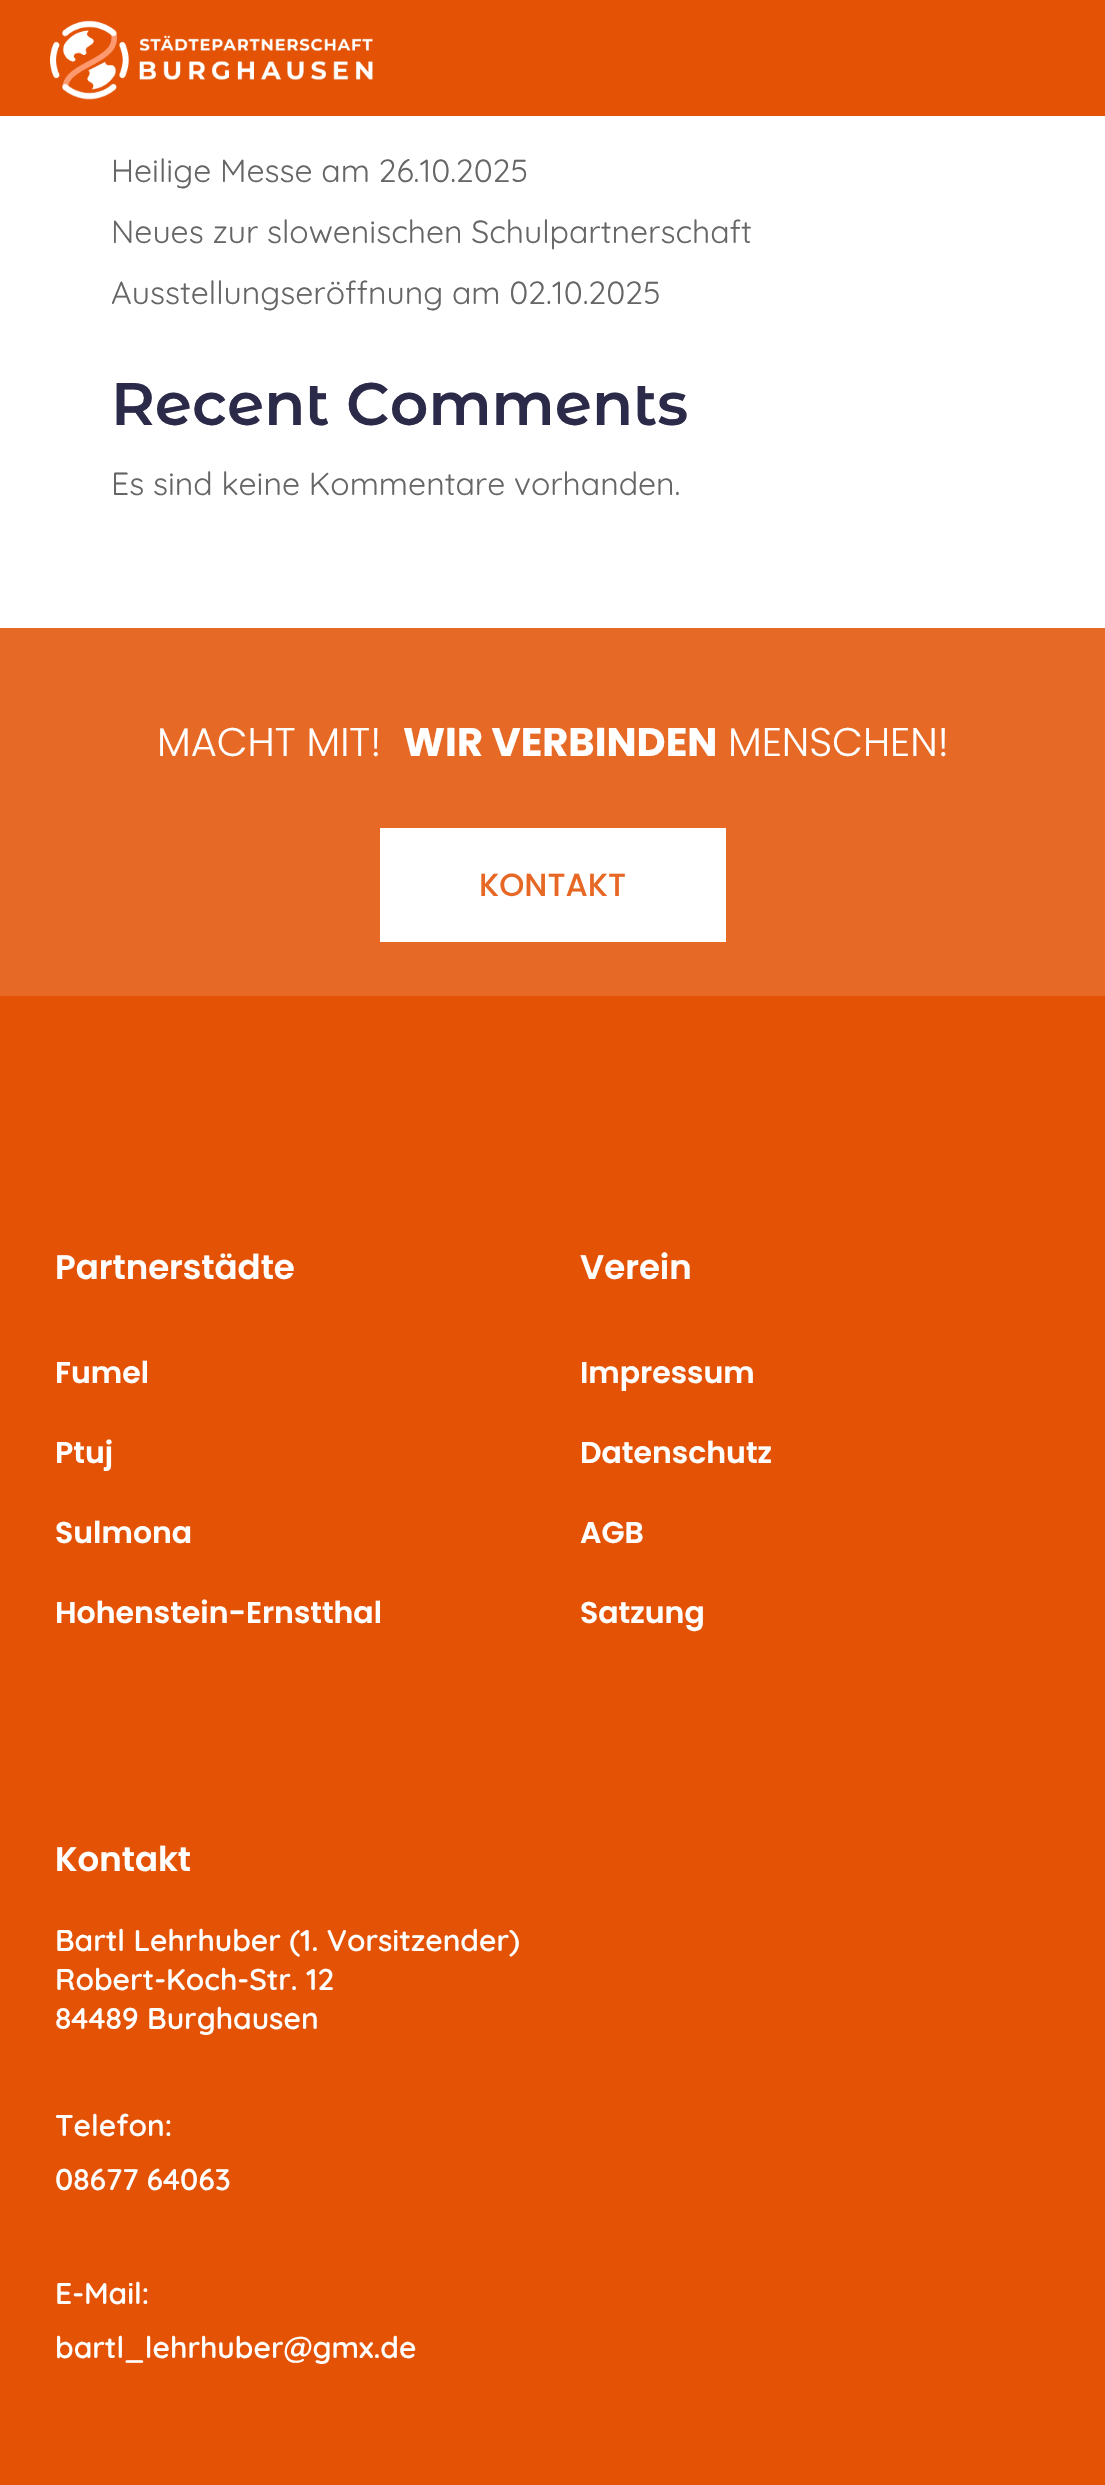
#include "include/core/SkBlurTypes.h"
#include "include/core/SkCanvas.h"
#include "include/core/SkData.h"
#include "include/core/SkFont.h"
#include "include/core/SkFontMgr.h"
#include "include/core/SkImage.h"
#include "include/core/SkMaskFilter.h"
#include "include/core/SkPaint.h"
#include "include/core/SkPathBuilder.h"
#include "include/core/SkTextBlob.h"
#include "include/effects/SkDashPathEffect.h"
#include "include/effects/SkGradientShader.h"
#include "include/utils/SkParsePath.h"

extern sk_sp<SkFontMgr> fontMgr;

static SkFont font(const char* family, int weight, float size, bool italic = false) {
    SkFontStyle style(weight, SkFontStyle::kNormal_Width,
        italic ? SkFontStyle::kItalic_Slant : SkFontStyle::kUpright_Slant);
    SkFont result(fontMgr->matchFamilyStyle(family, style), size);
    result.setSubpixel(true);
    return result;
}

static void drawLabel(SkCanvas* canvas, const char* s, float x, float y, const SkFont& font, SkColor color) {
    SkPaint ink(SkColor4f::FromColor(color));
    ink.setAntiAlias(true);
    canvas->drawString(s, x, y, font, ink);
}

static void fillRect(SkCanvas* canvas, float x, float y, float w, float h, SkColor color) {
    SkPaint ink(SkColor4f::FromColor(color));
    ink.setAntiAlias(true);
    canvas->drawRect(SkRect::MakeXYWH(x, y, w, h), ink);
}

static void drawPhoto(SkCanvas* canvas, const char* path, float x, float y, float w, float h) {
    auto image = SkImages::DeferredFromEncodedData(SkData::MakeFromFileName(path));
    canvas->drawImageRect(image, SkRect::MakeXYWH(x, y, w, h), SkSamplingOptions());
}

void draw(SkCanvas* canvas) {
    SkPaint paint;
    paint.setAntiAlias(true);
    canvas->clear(0xFFFFFFFF);
    fillRect(canvas, 0, 0, 1105, 116, 0xFFE35205);
    drawPhoto(canvas, "assets/img1.png", 50, 20, 323, 80);
    SkFont font1 = font("Quicksand", 400, 32);
    drawLabel(canvas, "Heilige Messe am 26.10.2025", 111, 182, font1, 0xFF666666);
    drawLabel(canvas, "Neues zur slowenischen Schulpartnerschaft", 111, 243, font1, 0xFF666666);
    drawLabel(canvas, "Ausstellungseröffnung am 02.10.2025", 111, 304, font1, 0xFF666666);
    SkFont font2 = font("Montserrat Alternates", 600, 60);
    drawLabel(canvas, "Recent Comments", 111, 425, font2, 0xFF2C2A49);
    drawLabel(canvas, "Es sind keine Kommentare vorhanden.", 111, 495, font1, 0xFF666666);
    fillRect(canvas, 0, 628, 1105, 368, 0xFFE76926);
    SkFont font3 = font("Poppins", 300, 40);
    drawLabel(canvas, "MACHT MIT!", 157, 756, font3, 0xFFFFFFFF);
    SkFont font4 = font("Poppins", 700, 40);
    drawLabel(canvas, "WIR VERBINDEN", 403, 756, font4, 0xFFFFFFFF);
    drawLabel(canvas, "MENSCHEN!", 728, 756, font3, 0xFFFFFFFF);
    fillRect(canvas, 380, 828, 346, 114, 0xFFFFFFFF);
    SkFont font5 = font("Poppins", 500, 32);
    drawLabel(canvas, "KONTAKT", 479, 896, font5, 0xFFE76825);
    fillRect(canvas, 0, 996, 1105, 1489, 0xFFE35205);
    SkFont font6 = font("Poppins", 600, 34);
    drawLabel(canvas, "Partnerstädte", 55, 1279, font6, 0xFFFFFFFF);
    SkFont font7 = font("Poppins", 600, 30);
    drawLabel(canvas, "Fumel", 55, 1383, font7, 0xFFFFFFFF);
    drawLabel(canvas, "Ptuj", 55, 1463, font7, 0xFFFFFFFF);
    drawLabel(canvas, "Sulmona", 55, 1543, font7, 0xFFFFFFFF);
    drawLabel(canvas, "Hohenstein-Ernstthal", 55, 1623, font7, 0xFFFFFFFF);
    drawLabel(canvas, "Verein", 580, 1279, font6, 0xFFFFFFFF);
    drawLabel(canvas, "Impressum", 580, 1383, font7, 0xFFFFFFFF);
    drawLabel(canvas, "Datenschutz", 580, 1463, font7, 0xFFFFFFFF);
    drawLabel(canvas, "AGB", 580, 1543, font7, 0xFFFFFFFF);
    drawLabel(canvas, "Satzung", 580, 1623, font7, 0xFFFFFFFF);
    drawLabel(canvas, "Kontakt", 55, 1871, font6, 0xFFFFFFFF);
    SkFont font8 = font("Quicksand", 600, 30);
    drawLabel(canvas, "Bartl Lehrhuber (1. Vorsitzender)", 55, 1951, font8, 0xFFFFFFFF);
    drawLabel(canvas, "Robert-Koch-Str. 12", 55, 1990, font8, 0xFFFFFFFF);
    drawLabel(canvas, "84489 Burghausen", 55, 2029, font8, 0xFFFFFFFF);
    drawLabel(canvas, "Telefon:", 55, 2136, font8, 0xFFFFFFFF);
    drawLabel(canvas, "08677 64063", 55, 2190, font8, 0xFFFFFFFF);
    drawLabel(canvas, "E-Mail:", 55, 2304, font8, 0xFFFFFFFF);
    drawLabel(canvas, "bartl_lehrhuber@gmx.de", 55, 2358, font8, 0xFFFFFFFF);
}
